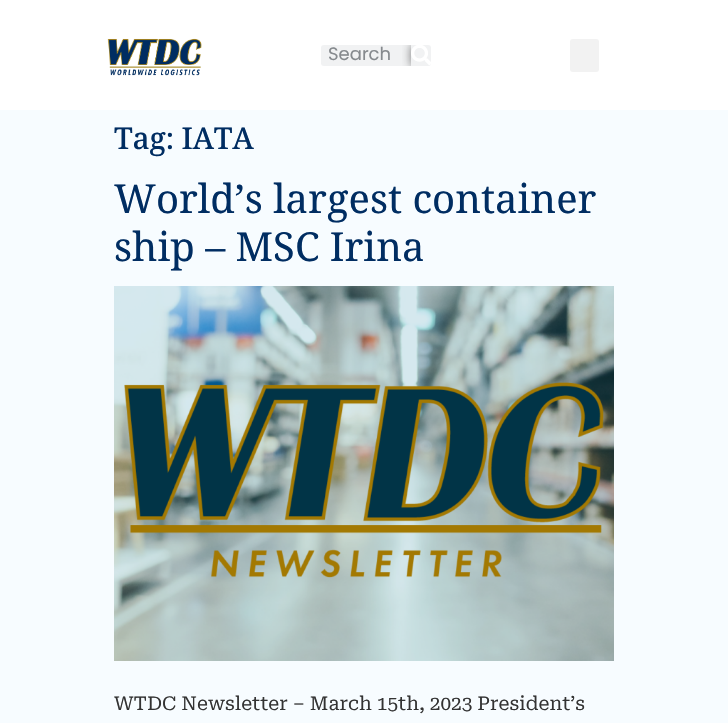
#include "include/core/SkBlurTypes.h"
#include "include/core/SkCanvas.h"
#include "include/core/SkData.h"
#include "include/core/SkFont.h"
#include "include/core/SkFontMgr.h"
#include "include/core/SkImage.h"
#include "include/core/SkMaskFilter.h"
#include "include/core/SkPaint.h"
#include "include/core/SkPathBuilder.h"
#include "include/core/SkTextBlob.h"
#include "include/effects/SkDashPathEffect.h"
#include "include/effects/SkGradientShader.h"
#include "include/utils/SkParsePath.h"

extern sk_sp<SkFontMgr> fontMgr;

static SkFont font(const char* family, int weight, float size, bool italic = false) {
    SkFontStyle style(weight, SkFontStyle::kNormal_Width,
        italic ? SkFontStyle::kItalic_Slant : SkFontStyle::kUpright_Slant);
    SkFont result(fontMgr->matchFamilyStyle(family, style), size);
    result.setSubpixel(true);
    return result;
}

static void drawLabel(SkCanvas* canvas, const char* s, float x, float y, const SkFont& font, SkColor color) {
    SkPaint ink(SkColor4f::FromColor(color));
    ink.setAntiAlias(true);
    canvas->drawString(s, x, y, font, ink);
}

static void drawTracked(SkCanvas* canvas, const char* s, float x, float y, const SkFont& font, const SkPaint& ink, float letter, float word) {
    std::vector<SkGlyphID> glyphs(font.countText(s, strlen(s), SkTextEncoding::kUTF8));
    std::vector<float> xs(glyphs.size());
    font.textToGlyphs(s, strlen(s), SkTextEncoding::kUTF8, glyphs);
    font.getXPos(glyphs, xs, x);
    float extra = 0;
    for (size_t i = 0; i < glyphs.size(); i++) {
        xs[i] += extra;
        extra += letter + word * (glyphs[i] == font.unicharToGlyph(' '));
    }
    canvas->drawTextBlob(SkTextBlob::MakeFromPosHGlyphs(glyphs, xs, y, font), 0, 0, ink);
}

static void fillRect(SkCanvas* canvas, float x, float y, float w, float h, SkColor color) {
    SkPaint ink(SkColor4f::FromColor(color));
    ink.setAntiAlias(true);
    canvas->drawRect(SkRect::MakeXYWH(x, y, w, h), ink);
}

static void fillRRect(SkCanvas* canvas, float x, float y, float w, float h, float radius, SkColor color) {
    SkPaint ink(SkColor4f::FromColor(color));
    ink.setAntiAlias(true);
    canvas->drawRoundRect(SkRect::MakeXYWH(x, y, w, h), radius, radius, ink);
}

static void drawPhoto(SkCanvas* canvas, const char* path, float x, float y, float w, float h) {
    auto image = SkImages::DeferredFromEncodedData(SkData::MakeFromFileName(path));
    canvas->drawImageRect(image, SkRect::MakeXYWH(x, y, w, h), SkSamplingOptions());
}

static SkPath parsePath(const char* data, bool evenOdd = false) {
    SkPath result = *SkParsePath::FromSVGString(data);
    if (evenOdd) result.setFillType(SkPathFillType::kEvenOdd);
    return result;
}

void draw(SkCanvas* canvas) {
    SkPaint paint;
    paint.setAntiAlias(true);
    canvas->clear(0xFFF7FCFF);
    fillRect(canvas, 0, 0, 728, 110, 0xFFFFFFFF);
    drawPhoto(canvas, "assets/img1.png", 107, 38, 95, 38);
    fillRRect(canvas, 321, 45, 110, 21, 3, 0xFFF1F2F3);
    SkFont font1 = font("Poppins", 400, 18);
    drawLabel(canvas, "Search", 328, 60, font1, 0xFF868A8E);
    canvas->save();
    canvas->clipPath(parsePath("M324 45H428C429.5 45 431 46.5 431 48V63C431 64.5 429.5 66 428 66H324C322.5 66 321 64.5 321 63V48C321 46.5 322.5 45 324 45Z"), true);
    canvas->clipRect(SkRect::MakeXYWH(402, 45, 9, 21));
    paint.setColor(0x80000000);
    paint.setMaskFilter(SkMaskFilter::MakeBlur(kNormal_SkBlurStyle, 5));
    canvas->drawRect(SkRect::MakeXYWH(411, 45, 20, 21), paint);
    paint.setMaskFilter(nullptr);
    canvas->restore();
    drawPhoto(canvas, "assets/img2.png", 411, 45, 20, 20);
    fillRRect(canvas, 570, 39, 29, 33, 3, 0xFFF2F2F2);
    SkFont font2 = font("Noto Serif", 500, 30);
    paint.setColor(0xFF002D62);
    drawTracked(canvas, "Tag: IATA", 114, 149, font2, paint, -0.25f, 0);
    SkFont font3 = font("Noto Serif", 400, 40);
    drawLabel(canvas, "World’s largest container", 114, 213, font3, 0xFF002D62);
    drawLabel(canvas, "ship – MSC Irina", 114, 261, font3, 0xFF002D62);
    drawPhoto(canvas, "assets/img3.png", 114, 286, 500, 375);
    SkFont font4 = font("Roboto Serif", 400, 19);
    drawLabel(canvas, "WTDC Newsletter – March 15th, 2023 President’s", 114, 710, font4, 0xFF333333);
}
